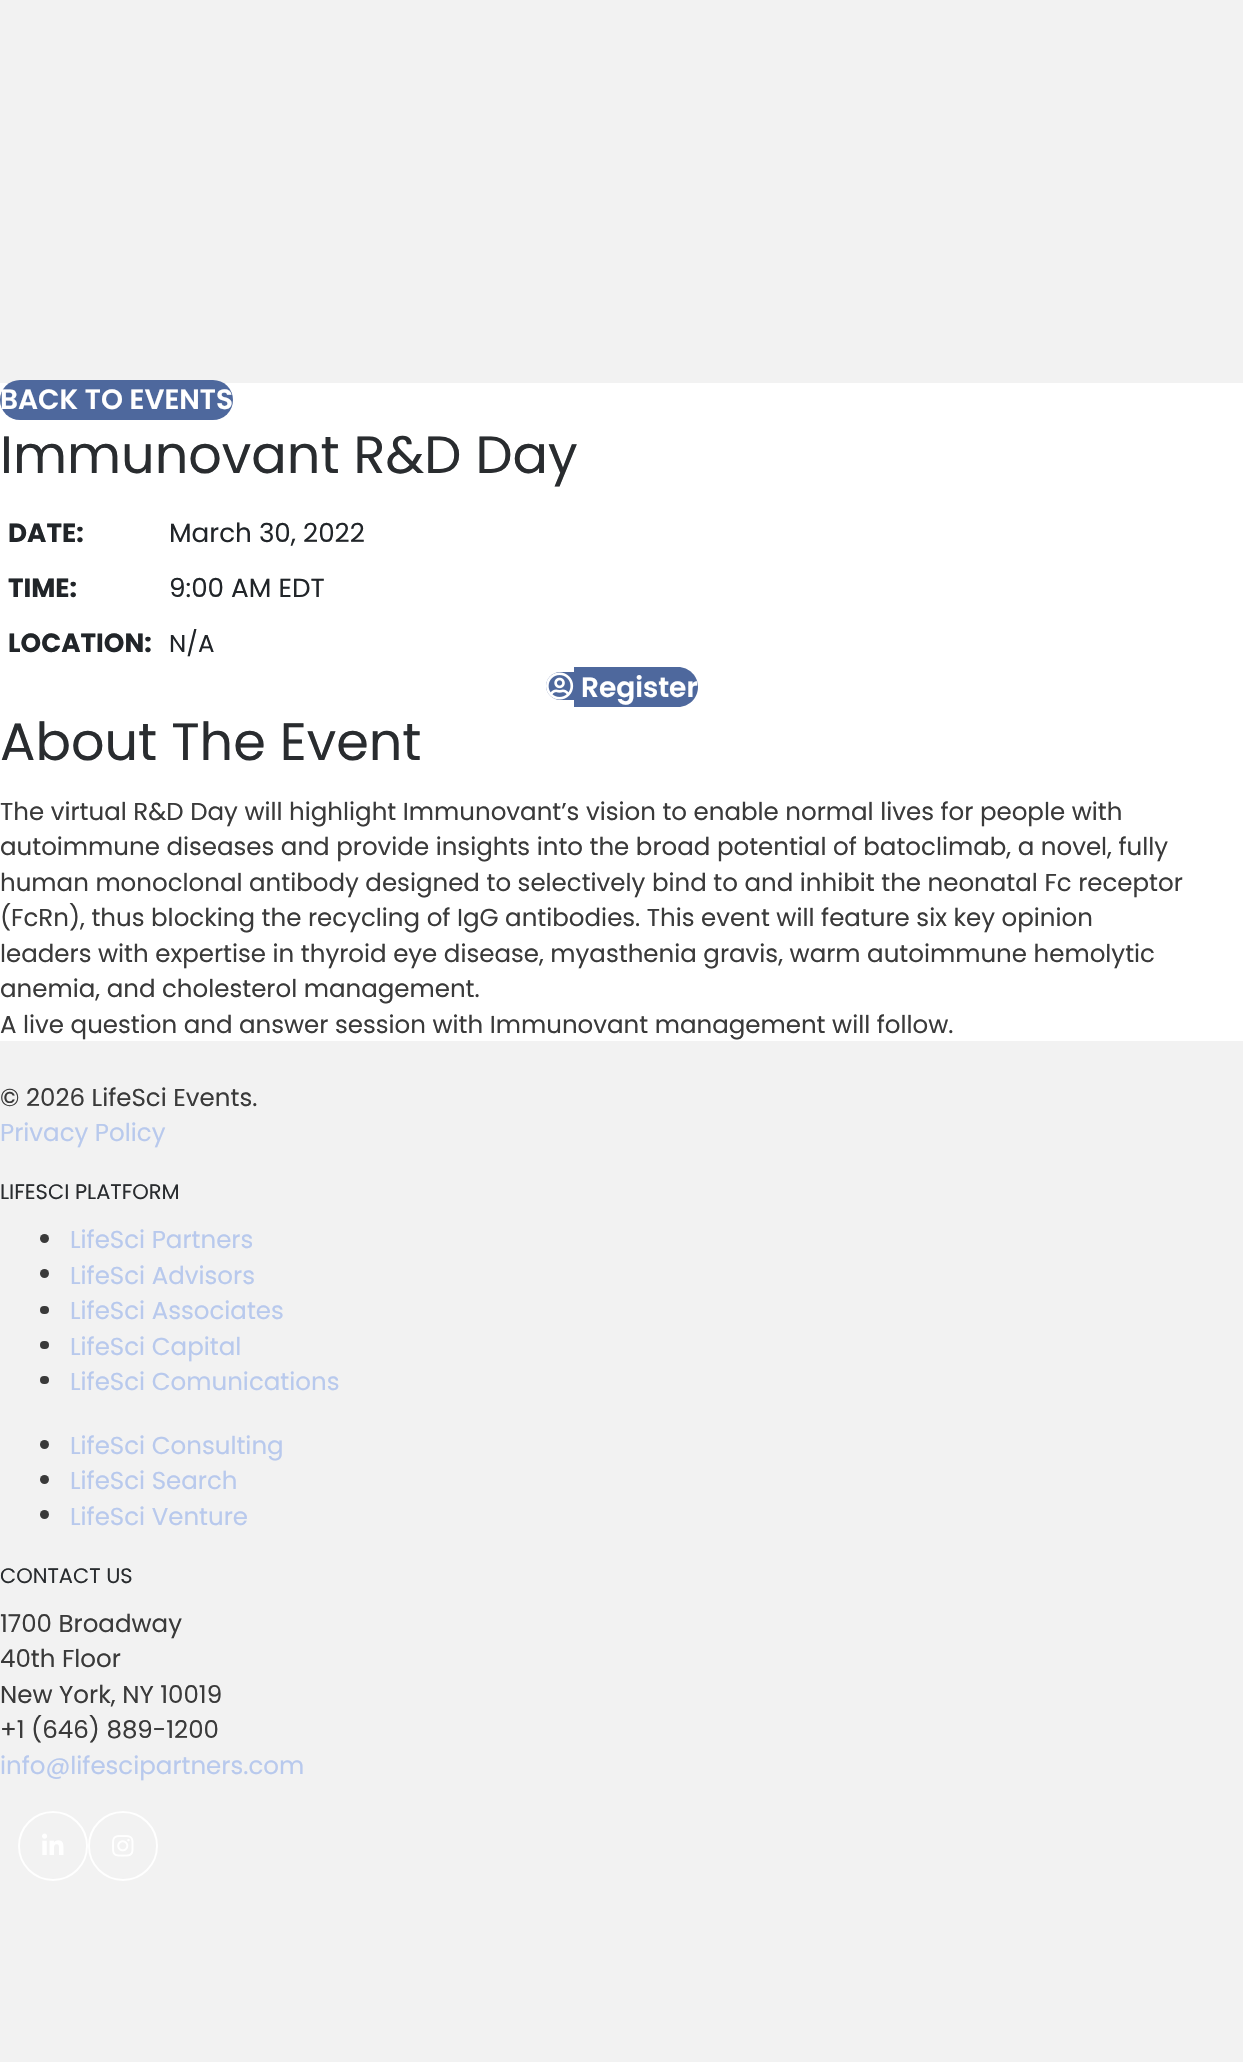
#include "include/core/SkBlurTypes.h"
#include "include/core/SkCanvas.h"
#include "include/core/SkData.h"
#include "include/core/SkFont.h"
#include "include/core/SkFontMgr.h"
#include "include/core/SkImage.h"
#include "include/core/SkMaskFilter.h"
#include "include/core/SkPaint.h"
#include "include/core/SkPathBuilder.h"
#include "include/core/SkTextBlob.h"
#include "include/effects/SkDashPathEffect.h"
#include "include/effects/SkGradientShader.h"
#include "include/utils/SkParsePath.h"

extern sk_sp<SkFontMgr> fontMgr;

static SkFont font(const char* family, int weight, float size, bool italic = false) {
    SkFontStyle style(weight, SkFontStyle::kNormal_Width,
        italic ? SkFontStyle::kItalic_Slant : SkFontStyle::kUpright_Slant);
    SkFont result(fontMgr->matchFamilyStyle(family, style), size);
    result.setSubpixel(true);
    return result;
}

static void drawLabel(SkCanvas* canvas, const char* s, float x, float y, const SkFont& font, SkColor color) {
    SkPaint ink(SkColor4f::FromColor(color));
    ink.setAntiAlias(true);
    canvas->drawString(s, x, y, font, ink);
}

static void fillRect(SkCanvas* canvas, float x, float y, float w, float h, SkColor color) {
    SkPaint ink(SkColor4f::FromColor(color));
    ink.setAntiAlias(true);
    canvas->drawRect(SkRect::MakeXYWH(x, y, w, h), ink);
}

static void fillRRect(SkCanvas* canvas, float x, float y, float w, float h, float radius, SkColor color) {
    SkPaint ink(SkColor4f::FromColor(color));
    ink.setAntiAlias(true);
    canvas->drawRoundRect(SkRect::MakeXYWH(x, y, w, h), radius, radius, ink);
}

static void drawPhoto(SkCanvas* canvas, const char* path, float x, float y, float w, float h) {
    auto image = SkImages::DeferredFromEncodedData(SkData::MakeFromFileName(path));
    canvas->drawImageRect(image, SkRect::MakeXYWH(x, y, w, h), SkSamplingOptions());
}

static SkPath parsePath(const char* data, bool evenOdd = false) {
    SkPath result = *SkParsePath::FromSVGString(data);
    if (evenOdd) result.setFillType(SkPathFillType::kEvenOdd);
    return result;
}

void draw(SkCanvas* canvas) {
    SkPaint paint;
    paint.setAntiAlias(true);
    canvas->clear(0xFFF2F2F2);
    fillRect(canvas, 0, 383, 1243, 658, 0xFFFFFFFF);
    fillRRect(canvas, 0, 380, 233, 40, 20, 0xFF4E689D);
    SkFont font1 = font("Poppins", 600, 28);
    drawLabel(canvas, "BACK TO EVENTS", 0, 409, font1, 0xFFFFFFFF);
    SkFont font2 = font("Poppins", 400, 52.5f);
    drawLabel(canvas, "Immunovant R&D Day", 0, 473, font2, 0xFF292C2F);
    SkFont font3 = font("Poppins", 700, 26.25f);
    drawLabel(canvas, "DATE:", 8, 542, font3, 0xFF212529);
    SkFont font4 = font("Poppins", 400, 26.25f);
    drawLabel(canvas, "March 30, 2022", 169, 542, font4, 0xFF212529);
    drawLabel(canvas, "TIME:", 8, 597, font3, 0xFF212529);
    drawLabel(canvas, "9:00 AM EDT", 169, 597, font4, 0xFF212529);
    drawLabel(canvas, "LOCATION:", 8, 652, font3, 0xFF212529);
    SkFont font5 = font("Poppins", 400, 24.5f);
    drawLabel(canvas, "N/A", 169, 652, font5, 0xFF212529);
    paint.setColor(0xFF4E689D);
    canvas->drawPath(parsePath("M560 672H574V700H560C552.5 700 546 693.5 546 686C546 678.5 552.5 672 560 672Z"), paint);
    fillRect(canvas, 574, 667, 7, 40, 0xFF4E689D);
    canvas->drawPath(parsePath("M581 667H678C689 667 698 676 698 687C698 698 689 707 678 707H581Z"), paint);
    drawPhoto(canvas, "assets/img1.png", 546, 672, 28, 28);
    drawLabel(canvas, "Register", 581, 697, font1, 0xFFFFFFFF);
    drawLabel(canvas, "About The Event", 0, 760, font2, 0xFF292C2F);
    drawLabel(canvas, "The virtual R&D Day will highlight Immunovant’s vision to enable normal lives for people with", 0, 820, font5, 0xFF3A3A3A);
    drawLabel(canvas, "autoimmune diseases and provide insights into the broad potential of batoclimab, a novel, fully", 0, 855, font5, 0xFF3A3A3A);
    drawLabel(canvas, "human monoclonal antibody designed to selectively bind to and inhibit the neonatal Fc receptor", 0, 891, font5, 0xFF3A3A3A);
    drawLabel(canvas, "(FcRn), thus blocking the recycling of IgG antibodies. This event will feature six key opinion", 0, 926, font5, 0xFF3A3A3A);
    drawLabel(canvas, "leaders with expertise in thyroid eye disease, myasthenia gravis, warm autoimmune hemolytic", 0, 962, font5, 0xFF3A3A3A);
    drawLabel(canvas, "anemia, and cholesterol management.", 0, 997, font5, 0xFF3A3A3A);
    drawLabel(canvas, "A live question and answer session with Immunovant management will follow.", 0, 1033, font5, 0xFF3A3A3A);
    drawLabel(canvas, "© 2026 LifeSci Events.", 0, 1106, font5, 0xFF3A3A3A);
    drawLabel(canvas, "Privacy Policy", 0, 1141, font5, 0xFFB8C9ED);
    SkFont font6 = font("Poppins", 400, 21);
    drawLabel(canvas, "LIFESCI PLATFORM", 0, 1199, font6, 0xFF292C2F);
    paint.setColor(0xFF3A3A3A);
    canvas->drawCircle(44.5f, 1238.5f, 4.5f, paint);
    drawLabel(canvas, "LifeSci Partners", 70, 1248, font5, 0xFFB8C9ED);
    canvas->drawCircle(44.5f, 1273.5f, 4.5f, paint);
    drawLabel(canvas, "LifeSci Advisors", 70, 1284, font5, 0xFFB8C9ED);
    fillRRect(canvas, 40, 1306, 9, 8, 4, 0xFF3A3A3A);
    drawLabel(canvas, "LifeSci Associates", 70, 1319, font5, 0xFFB8C9ED);
    fillRRect(canvas, 40, 1341, 9, 8, 4, 0xFF3A3A3A);
    drawLabel(canvas, "LifeSci Capital", 70, 1355, font5, 0xFFB8C9ED);
    fillRRect(canvas, 40, 1376, 9, 8, 4, 0xFF3A3A3A);
    drawLabel(canvas, "LifeSci Comunications", 70, 1390, font5, 0xFFB8C9ED);
    canvas->drawCircle(44.5f, 1444.5f, 4.5f, paint);
    drawLabel(canvas, "LifeSci Consulting", 70, 1454, font5, 0xFFB8C9ED);
    canvas->drawCircle(44.5f, 1479.5f, 4.5f, paint);
    drawLabel(canvas, "LifeSci Search", 70, 1489, font5, 0xFFB8C9ED);
    canvas->drawCircle(44.5f, 1514.5f, 4.5f, paint);
    drawLabel(canvas, "LifeSci Venture", 70, 1525, font5, 0xFFB8C9ED);
    drawLabel(canvas, "CONTACT US", 0, 1583, font6, 0xFF292C2F);
    drawLabel(canvas, "1700 Broadway", 0, 1632, font5, 0xFF3A3A3A);
    drawLabel(canvas, "40th Floor", 0, 1667, font5, 0xFF3A3A3A);
    drawLabel(canvas, "New York, NY 10019", 0, 1703, font5, 0xFF3A3A3A);
    drawLabel(canvas, "+1 (646) 889-1200", 0, 1738, font5, 0xFF3A3A3A);
    drawLabel(canvas, "info@lifescipartners.com", 0, 1774, font5, 0xFFB8C9ED);
    paint.setStroke(true);
    paint.setStrokeWidth(2);
    paint.setColor(0xFFFFFFFF);
    canvas->drawCircle(53, 1846, 34, paint);
    drawPhoto(canvas, "assets/img2.png", 42, 1833, 22, 22);
    canvas->drawCircle(123, 1846, 34, paint);
    drawPhoto(canvas, "assets/img3.png", 112, 1835, 22, 22);
}
